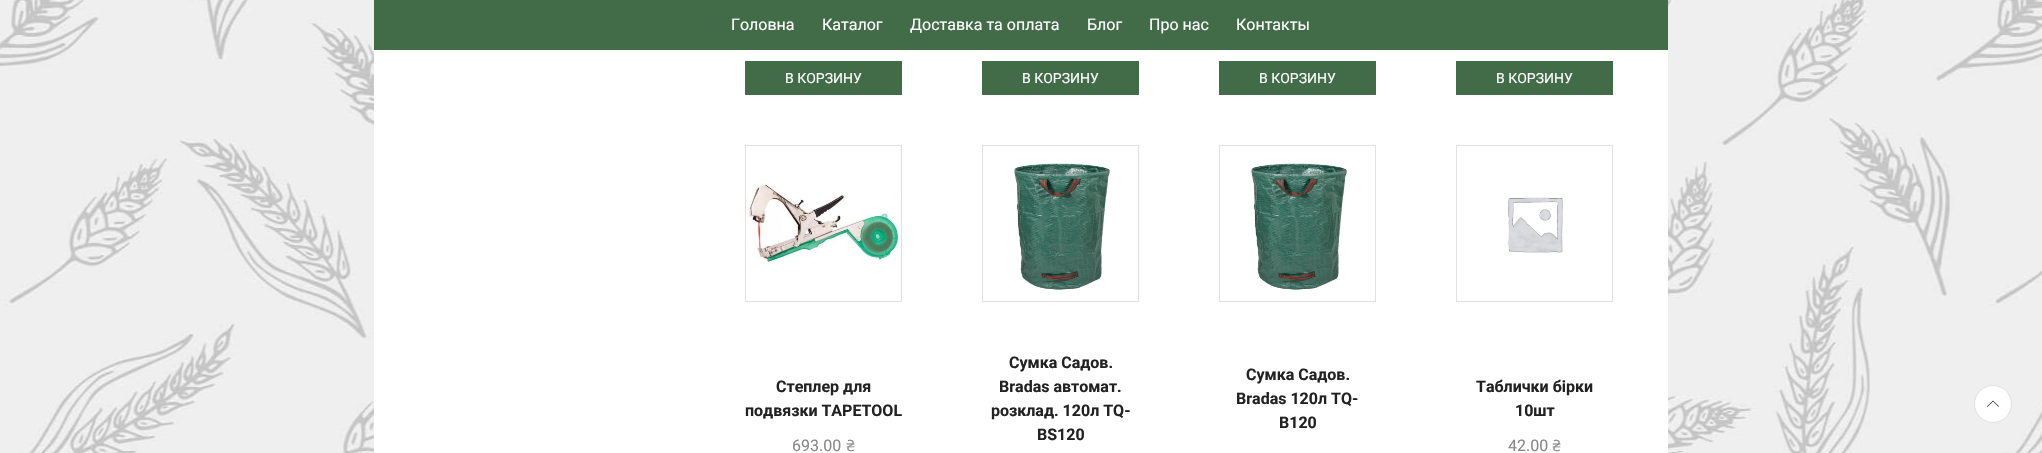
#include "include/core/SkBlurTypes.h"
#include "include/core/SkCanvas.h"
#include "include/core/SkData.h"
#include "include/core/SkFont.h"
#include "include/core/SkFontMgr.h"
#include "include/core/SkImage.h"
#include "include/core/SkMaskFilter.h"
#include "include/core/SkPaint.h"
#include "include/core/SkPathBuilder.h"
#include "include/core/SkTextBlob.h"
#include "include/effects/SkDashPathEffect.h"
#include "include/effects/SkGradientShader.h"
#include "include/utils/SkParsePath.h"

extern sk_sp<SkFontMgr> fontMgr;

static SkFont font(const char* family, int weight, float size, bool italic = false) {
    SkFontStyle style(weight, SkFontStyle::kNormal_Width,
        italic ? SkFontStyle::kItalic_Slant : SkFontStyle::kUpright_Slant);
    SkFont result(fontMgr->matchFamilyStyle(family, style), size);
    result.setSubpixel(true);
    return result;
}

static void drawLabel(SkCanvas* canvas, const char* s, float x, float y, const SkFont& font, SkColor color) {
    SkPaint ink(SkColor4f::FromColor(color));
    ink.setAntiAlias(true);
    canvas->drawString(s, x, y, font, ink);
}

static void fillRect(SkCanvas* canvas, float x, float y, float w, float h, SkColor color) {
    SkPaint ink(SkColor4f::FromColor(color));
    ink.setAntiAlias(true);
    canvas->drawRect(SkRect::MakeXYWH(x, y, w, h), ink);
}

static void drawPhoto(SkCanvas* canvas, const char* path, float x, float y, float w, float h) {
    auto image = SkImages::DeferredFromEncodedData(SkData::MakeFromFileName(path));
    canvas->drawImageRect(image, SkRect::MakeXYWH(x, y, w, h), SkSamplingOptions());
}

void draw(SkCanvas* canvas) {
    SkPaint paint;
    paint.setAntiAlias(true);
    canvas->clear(0xFFFFFFFF);
    drawPhoto(canvas, "assets/img1.png", 0, 0, 2042, 453);
    fillRect(canvas, 374, 50, 1294, 403, 0xFFFFFFFF);
    fillRect(canvas, 374, 0, 1294, 50, 0xFF426C48);
    SkFont font1 = font("Roboto", 400, 16);
    drawLabel(canvas, "Головна", 731, 30, font1, 0xFFFFFFFF);
    drawLabel(canvas, "Каталог", 822, 30, font1, 0xFFFFFFFF);
    drawLabel(canvas, "Доставка та оплата", 910, 30, font1, 0xFFFFFFFF);
    drawLabel(canvas, "Блог", 1087, 30, font1, 0xFFFFFFFF);
    drawLabel(canvas, "Про нас", 1149, 30, font1, 0xFFFFFFFF);
    drawLabel(canvas, "Контакты", 1236, 30, font1, 0xFFFFFFFF);
    fillRect(canvas, 745, 61, 157, 34, 0xFF426C48);
    SkFont font2 = font("Roboto", 400, 14);
    drawLabel(canvas, "В КОРЗИНУ", 785, 83, font2, 0xFFFFFFFF);
    fillRect(canvas, 982, 61, 157, 34, 0xFF426C48);
    drawLabel(canvas, "В КОРЗИНУ", 1022, 83, font2, 0xFFFFFFFF);
    fillRect(canvas, 1219, 61, 157, 34, 0xFF426C48);
    drawLabel(canvas, "В КОРЗИНУ", 1259, 83, font2, 0xFFFFFFFF);
    fillRect(canvas, 1456, 61, 157, 34, 0xFF426C48);
    drawLabel(canvas, "В КОРЗИНУ", 1496, 83, font2, 0xFFFFFFFF);
    paint.setStroke(true);
    paint.setStrokeWidth(1);
    paint.setColor(0xFFE1E1E1);
    canvas->drawRect(SkRect::MakeXYWH(745.5f, 145.5f, 156, 156), paint);
    drawPhoto(canvas, "assets/img2.png", 746, 183, 155, 80);
    SkFont font3 = font("Roboto", 700, 16);
    drawLabel(canvas, "Степлер для", 776, 392, font3, 0xFF222222);
    drawLabel(canvas, "подвязки TAPETOOL", 745, 416, font3, 0xFF222222);
    drawLabel(canvas, "693.00", 792, 451, font1, 0xFF888888);
    SkFont font4 = font("Ubuntu", 400, 16);
    drawLabel(canvas, "₴", 846, 451, font4, 0xFF888888);
    canvas->drawRect(SkRect::MakeXYWH(982.5f, 145.5f, 156, 156), paint);
    drawPhoto(canvas, "assets/img3.png", 1014, 163, 96, 127);
    drawLabel(canvas, "Сумка Садов.", 1009, 368, font3, 0xFF222222);
    drawLabel(canvas, "Bradas автомат.", 999, 392, font3, 0xFF222222);
    drawLabel(canvas, "розклад. 120л TQ-", 991, 416, font3, 0xFF222222);
    drawLabel(canvas, "BS120", 1037, 440, font3, 0xFF222222);
    canvas->drawRect(SkRect::MakeXYWH(1219.5f, 145.5f, 156, 156), paint);
    drawPhoto(canvas, "assets/img3.png", 1251, 163, 96, 127);
    drawLabel(canvas, "Сумка Садов.", 1246, 380, font3, 0xFF222222);
    drawLabel(canvas, "Bradas 120л TQ-", 1236, 404, font3, 0xFF222222);
    drawLabel(canvas, "B120", 1279, 428, font3, 0xFF222222);
    canvas->drawRect(SkRect::MakeXYWH(1456.5f, 145.5f, 156, 156), paint);
    drawPhoto(canvas, "assets/img4.png", 1508, 197, 55, 56);
    drawLabel(canvas, "Таблички бірки", 1476, 392, font3, 0xFF222222);
    drawLabel(canvas, "10шт", 1515, 416, font3, 0xFF222222);
    drawLabel(canvas, "42.00", 1508, 451, font1, 0xFF888888);
    drawLabel(canvas, "₴", 1552, 451, font4, 0xFF888888);
    paint.setStroke(false);
    paint.setColor(0xFFFFFFFF);
    canvas->drawCircle(1993, 404, 18.5f, paint);
    paint.setStroke(true);
    paint.setColor(0xFFE1E1E1);
    canvas->drawCircle(1993, 404, 18.5f, paint);
    drawPhoto(canvas, "assets/img5.png", 1987, 400, 12, 7);
}
